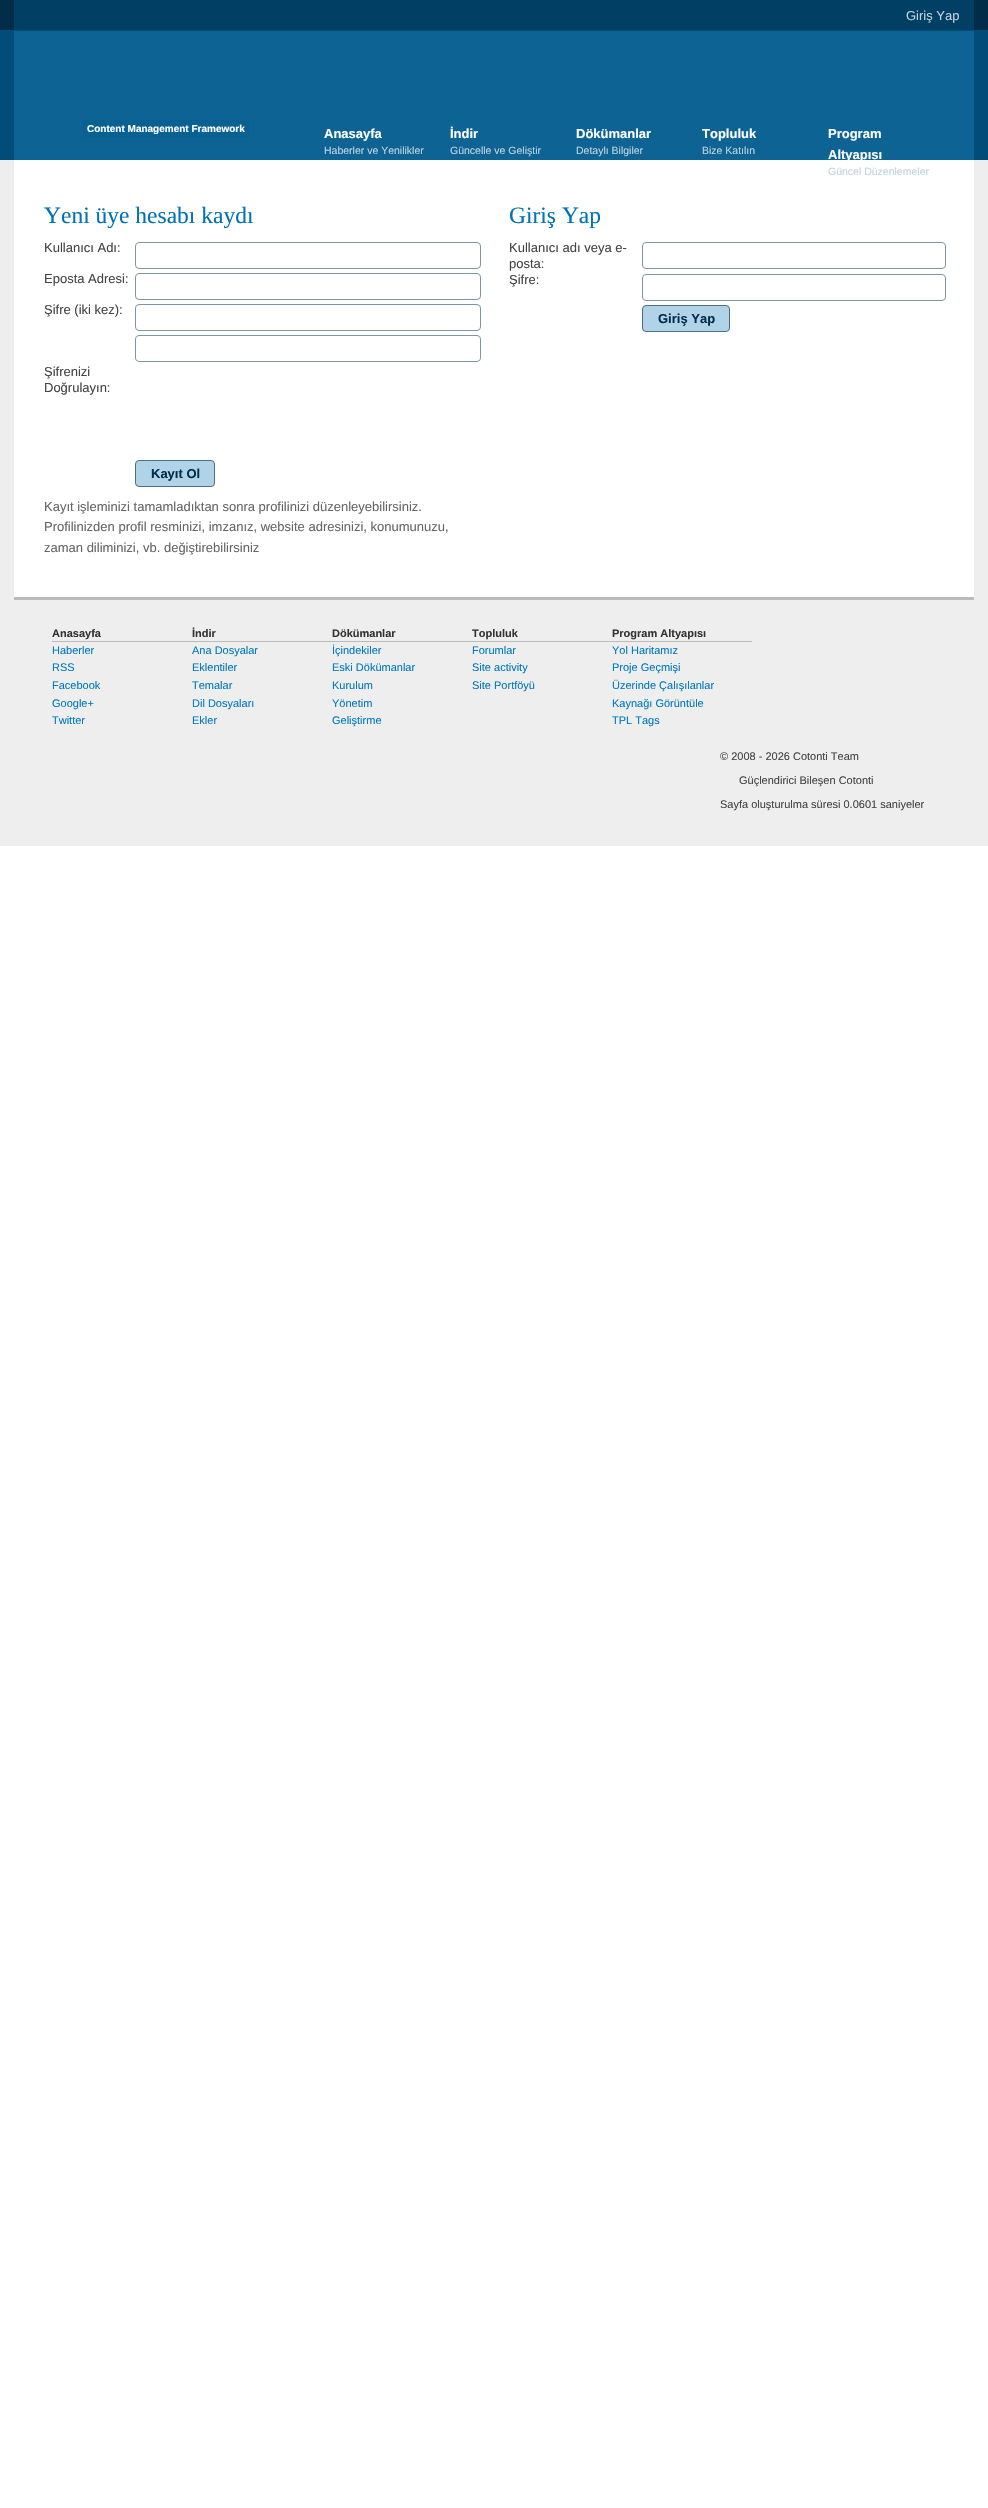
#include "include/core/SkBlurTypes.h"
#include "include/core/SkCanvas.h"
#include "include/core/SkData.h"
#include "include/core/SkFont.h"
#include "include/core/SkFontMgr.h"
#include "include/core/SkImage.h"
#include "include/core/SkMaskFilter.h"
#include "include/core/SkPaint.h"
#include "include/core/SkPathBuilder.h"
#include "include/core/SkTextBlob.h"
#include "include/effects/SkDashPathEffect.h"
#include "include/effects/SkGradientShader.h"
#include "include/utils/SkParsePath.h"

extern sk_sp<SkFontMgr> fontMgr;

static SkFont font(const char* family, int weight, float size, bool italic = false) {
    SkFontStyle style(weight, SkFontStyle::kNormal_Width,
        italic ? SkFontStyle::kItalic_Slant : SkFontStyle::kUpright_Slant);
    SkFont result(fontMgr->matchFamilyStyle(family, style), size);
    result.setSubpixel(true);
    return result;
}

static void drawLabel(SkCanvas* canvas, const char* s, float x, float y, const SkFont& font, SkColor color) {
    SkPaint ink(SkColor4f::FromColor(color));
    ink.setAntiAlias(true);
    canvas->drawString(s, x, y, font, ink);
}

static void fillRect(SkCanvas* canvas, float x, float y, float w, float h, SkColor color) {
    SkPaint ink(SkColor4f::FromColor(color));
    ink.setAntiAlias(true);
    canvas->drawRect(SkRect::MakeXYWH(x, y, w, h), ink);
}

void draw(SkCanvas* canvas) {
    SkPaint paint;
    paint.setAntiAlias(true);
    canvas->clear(0xFFFFFFFF);
    fillRect(canvas, 0, 0, 988, 30, 0xFF012D48);
    fillRect(canvas, 14, 0, 960, 30, 0xFF013F65);
    SkFont font1 = font("Liberation Sans", 400, 13);
    drawLabel(canvas, "Giriş Yap", 906, 20, font1, 0xFFC0D2DD);
    fillRect(canvas, 0, 30, 988, 130, 0xFF024C79);
    fillRect(canvas, 14, 31, 960, 129, 0xFF0E6395);
    fillRect(canvas, 83, 120, 166, 17, 0xFF096093);
    SkFont font2 = font("Liberation Sans", 700, 10);
    drawLabel(canvas, "Content Management Framework", 87, 132, font2, 0xFFFFFFFF);
    SkFont font3 = font("Liberation Sans", 700, 13);
    drawLabel(canvas, "Anasayfa", 324, 138, font3, 0xFFFFFFFF);
    SkFont font4 = font("Liberation Sans", 400, 10.5f);
    drawLabel(canvas, "Haberler ve Yenilikler", 324, 154, font4, 0xFFC0D2DD);
    drawLabel(canvas, "İndir", 450, 138, font3, 0xFFFFFFFF);
    drawLabel(canvas, "Güncelle ve Geliştir", 450, 154, font4, 0xFFC0D2DD);
    drawLabel(canvas, "Dökümanlar", 576, 138, font3, 0xFFFFFFFF);
    drawLabel(canvas, "Detaylı Bilgiler", 576, 154, font4, 0xFFC0D2DD);
    drawLabel(canvas, "Topluluk", 702, 138, font3, 0xFFFFFFFF);
    drawLabel(canvas, "Bize Katılın", 702, 154, font4, 0xFFC0D2DD);
    drawLabel(canvas, "Program", 828, 138, font3, 0xFFFFFFFF);
    fillRect(canvas, 0, 160, 988, 686, 0xFFEEEEEE);
    fillRect(canvas, 14, 160, 960, 437, 0xFFFFFFFF);
    drawLabel(canvas, "Altyapısı", 828, 159, font3, 0xFFFFFFFF);
    drawLabel(canvas, "Güncel Düzenlemeler", 828, 175, font4, 0xFFC0D2DD);
    fillRect(canvas, 14, 597, 960, 3, 0xFFBBBBBB);
    SkFont font5 = font("Liberation Serif", 400, 23.5f);
    drawLabel(canvas, "Yeni üye hesabı kaydı", 44, 223, font5, 0xFF0072B6);
    drawLabel(canvas, "Kullanıcı Adı:", 44, 252, font1, 0xFF444444);
    paint.setStroke(true);
    paint.setStrokeWidth(1);
    paint.setColor(0xFF7F95A3);
    canvas->drawRoundRect(SkRect::MakeXYWH(135.5f, 242.5f, 345, 26), 3.5f, 3.5f, paint);
    drawLabel(canvas, "Eposta Adresi:", 44, 283, font1, 0xFF444444);
    canvas->drawRoundRect(SkRect::MakeXYWH(135.5f, 273.5f, 345, 26), 3.5f, 3.5f, paint);
    drawLabel(canvas, "Şifre (iki kez):", 44, 314, font1, 0xFF444444);
    canvas->drawRoundRect(SkRect::MakeXYWH(135.5f, 304.5f, 345, 26), 3.5f, 3.5f, paint);
    canvas->drawRoundRect(SkRect::MakeXYWH(135.5f, 335.5f, 345, 26), 3.5f, 3.5f, paint);
    drawLabel(canvas, "Şifrenizi", 44, 376, font1, 0xFF444444);
    drawLabel(canvas, "Doğrulayın:", 44, 392, font1, 0xFF444444);
    paint.setStroke(false);
    paint.setColor(0xFFB1D3E7);
    canvas->drawRoundRect(SkRect::MakeXYWH(135.5f, 460.5f, 79, 26), 3.5f, 3.5f, paint);
    paint.setStroke(true);
    paint.setColor(0xFF4C6E83);
    canvas->drawRoundRect(SkRect::MakeXYWH(135.5f, 460.5f, 79, 26), 3.5f, 3.5f, paint);
    drawLabel(canvas, "Kayıt Ol", 151, 478, font3, 0xFF012D48);
    drawLabel(canvas, "Kayıt işleminizi tamamladıktan sonra profilinizi düzenleyebilirsiniz.", 44, 511, font1, 0xFF666666);
    drawLabel(canvas, "Profilinizden profil resminizi, imzanız, website adresinizi, konumunuzu,", 44, 531, font1, 0xFF666666);
    drawLabel(canvas, "zaman diliminizi, vb. değiştirebilirsiniz", 44, 552, font1, 0xFF666666);
    drawLabel(canvas, "Giriş Yap", 509, 223, font5, 0xFF0072B6);
    drawLabel(canvas, "Kullanıcı adı veya e-", 509, 252, font1, 0xFF444444);
    drawLabel(canvas, "posta:", 509, 268, font1, 0xFF444444);
    paint.setColor(0xFF7F95A3);
    canvas->drawRoundRect(SkRect::MakeXYWH(642.5f, 242.5f, 303, 26), 3.5f, 3.5f, paint);
    drawLabel(canvas, "Şifre:", 509, 284, font1, 0xFF444444);
    canvas->drawRoundRect(SkRect::MakeXYWH(642.5f, 274.5f, 303, 26), 3.5f, 3.5f, paint);
    paint.setStroke(false);
    paint.setColor(0xFFB1D3E7);
    canvas->drawRoundRect(SkRect::MakeXYWH(642.5f, 305.5f, 87, 26), 3.5f, 3.5f, paint);
    paint.setStroke(true);
    paint.setColor(0xFF4C6E83);
    canvas->drawRoundRect(SkRect::MakeXYWH(642.5f, 305.5f, 87, 26), 3.5f, 3.5f, paint);
    drawLabel(canvas, "Giriş Yap", 658, 323, font3, 0xFF012D48);
    fillRect(canvas, 52, 641, 700, 1, 0xFFBBBBBB);
    SkFont font6 = font("Liberation Sans", 700, 11);
    drawLabel(canvas, "Anasayfa", 52, 637, font6, 0xFF333333);
    SkFont font7 = font("Liberation Sans", 400, 11);
    drawLabel(canvas, "Haberler", 52, 654, font7, 0xFF0079C1);
    drawLabel(canvas, "RSS", 52, 671, font7, 0xFF0079C1);
    drawLabel(canvas, "Facebook", 52, 689, font7, 0xFF0079C1);
    drawLabel(canvas, "Google+", 52, 707, font7, 0xFF0079C1);
    drawLabel(canvas, "Twitter", 52, 724, font7, 0xFF0079C1);
    drawLabel(canvas, "İndir", 192, 637, font6, 0xFF333333);
    drawLabel(canvas, "Ana Dosyalar", 192, 654, font7, 0xFF0079C1);
    drawLabel(canvas, "Eklentiler", 192, 671, font7, 0xFF0079C1);
    drawLabel(canvas, "Temalar", 192, 689, font7, 0xFF0079C1);
    drawLabel(canvas, "Dil Dosyaları", 192, 707, font7, 0xFF0079C1);
    drawLabel(canvas, "Ekler", 192, 724, font7, 0xFF0079C1);
    drawLabel(canvas, "Dökümanlar", 332, 637, font6, 0xFF333333);
    drawLabel(canvas, "İçindekiler", 332, 654, font7, 0xFF0079C1);
    drawLabel(canvas, "Eski Dökümanlar", 332, 671, font7, 0xFF0079C1);
    drawLabel(canvas, "Kurulum", 332, 689, font7, 0xFF0079C1);
    drawLabel(canvas, "Yönetim", 332, 707, font7, 0xFF0079C1);
    drawLabel(canvas, "Geliştirme", 332, 724, font7, 0xFF0079C1);
    drawLabel(canvas, "Topluluk", 472, 637, font6, 0xFF333333);
    drawLabel(canvas, "Forumlar", 472, 654, font7, 0xFF0079C1);
    drawLabel(canvas, "Site activity", 472, 671, font7, 0xFF0079C1);
    drawLabel(canvas, "Site Portföyü", 472, 689, font7, 0xFF0079C1);
    drawLabel(canvas, "Program Altyapısı", 612, 637, font6, 0xFF333333);
    drawLabel(canvas, "Yol Haritamız", 612, 654, font7, 0xFF0079C1);
    drawLabel(canvas, "Proje Geçmişi", 612, 671, font7, 0xFF0079C1);
    drawLabel(canvas, "Üzerinde Çalışılanlar", 612, 689, font7, 0xFF0079C1);
    drawLabel(canvas, "Kaynağı Görüntüle", 612, 707, font7, 0xFF0079C1);
    drawLabel(canvas, "TPL Tags", 612, 724, font7, 0xFF0079C1);
    drawLabel(canvas, "© 2008 - 2026 Cotonti Team", 720, 760, font7, 0xFF444444);
    drawLabel(canvas, "Güçlendirici Bileşen Cotonti", 739, 784, font7, 0xFF444444);
    drawLabel(canvas, "Sayfa oluşturulma süresi 0.0601 saniyeler", 720, 808, font7, 0xFF444444);
}
